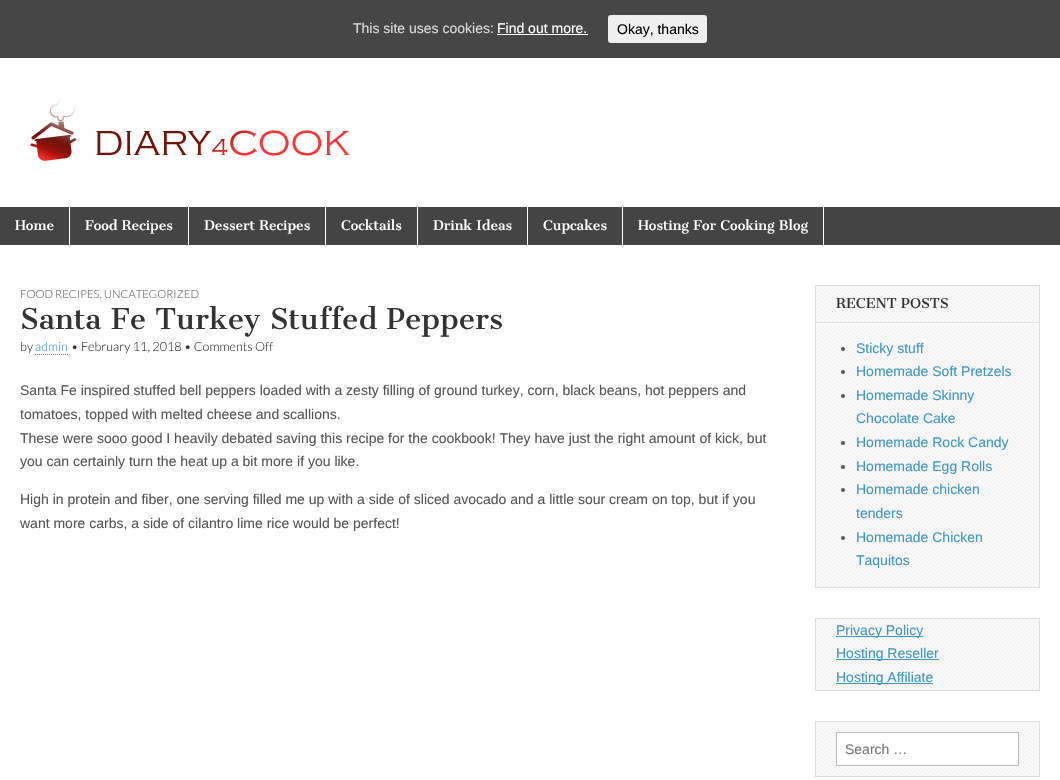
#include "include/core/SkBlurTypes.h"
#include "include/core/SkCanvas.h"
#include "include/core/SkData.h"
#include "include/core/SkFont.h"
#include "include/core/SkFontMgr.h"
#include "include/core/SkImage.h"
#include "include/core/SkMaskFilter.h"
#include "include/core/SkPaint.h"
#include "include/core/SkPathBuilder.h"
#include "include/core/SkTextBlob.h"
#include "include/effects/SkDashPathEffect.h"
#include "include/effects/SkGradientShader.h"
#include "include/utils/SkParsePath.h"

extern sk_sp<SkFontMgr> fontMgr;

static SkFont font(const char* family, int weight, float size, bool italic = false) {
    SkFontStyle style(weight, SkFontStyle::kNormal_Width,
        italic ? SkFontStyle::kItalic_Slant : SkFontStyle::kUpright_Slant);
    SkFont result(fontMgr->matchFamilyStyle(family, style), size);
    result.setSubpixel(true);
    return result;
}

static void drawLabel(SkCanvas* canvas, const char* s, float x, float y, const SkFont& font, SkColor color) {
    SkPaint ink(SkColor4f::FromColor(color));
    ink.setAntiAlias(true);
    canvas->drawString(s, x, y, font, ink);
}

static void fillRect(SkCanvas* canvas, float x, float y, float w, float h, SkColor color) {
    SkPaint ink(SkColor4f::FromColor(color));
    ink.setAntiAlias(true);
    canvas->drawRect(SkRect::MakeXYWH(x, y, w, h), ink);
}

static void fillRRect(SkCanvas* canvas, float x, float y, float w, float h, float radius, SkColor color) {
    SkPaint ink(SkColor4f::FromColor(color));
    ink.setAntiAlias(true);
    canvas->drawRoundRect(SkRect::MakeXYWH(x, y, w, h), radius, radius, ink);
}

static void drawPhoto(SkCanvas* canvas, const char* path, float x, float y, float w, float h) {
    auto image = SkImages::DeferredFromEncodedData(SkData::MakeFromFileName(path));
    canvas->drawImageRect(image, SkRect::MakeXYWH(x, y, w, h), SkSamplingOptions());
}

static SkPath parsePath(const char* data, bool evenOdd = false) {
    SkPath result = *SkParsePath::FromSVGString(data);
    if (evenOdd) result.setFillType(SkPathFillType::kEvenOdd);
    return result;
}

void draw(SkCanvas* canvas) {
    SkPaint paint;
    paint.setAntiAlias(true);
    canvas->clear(0xFFFFFFFF);
    fillRect(canvas, 0, 0, 1060, 58, 0xFF464646);
    SkFont font1 = font("Liberation Sans", 400, 14);
    drawLabel(canvas, "This site uses cookies:", 353, 33, font1, 0xFFDDDDDD);
    drawLabel(canvas, "Find out more.", 497, 33, font1, 0xFFFFFFFF);
    fillRect(canvas, 497, 34, 91, 1, 0xFFFFFFFF);
    fillRRect(canvas, 608, 15, 99, 28, 3, 0xFFEFEFEF);
    drawLabel(canvas, "Okay, thanks", 617, 34, font1, 0xFF000000);
    drawPhoto(canvas, "assets/img1.png", 30, 99, 320, 62);
    fillRect(canvas, 0, 207, 1060, 38, 0xFF444444);
    fillRect(canvas, 69, 207, 1, 38, 0xFFFFFFFF);
    SkFont font2 = font("Cantata One", 400, 13);
    drawLabel(canvas, "Home", 15, 230, font2, 0xFFFFFFFF);
    fillRect(canvas, 188, 207, 1, 38, 0xFFFFFFFF);
    drawLabel(canvas, "Food Recipes", 85, 230, font2, 0xFFFFFFFF);
    fillRect(canvas, 325, 207, 1, 38, 0xFFFFFFFF);
    drawLabel(canvas, "Dessert Recipes", 204, 230, font2, 0xFFFFFFFF);
    fillRect(canvas, 417, 207, 1, 38, 0xFFFFFFFF);
    drawLabel(canvas, "Cocktails", 341, 230, font2, 0xFFFFFFFF);
    fillRect(canvas, 527, 207, 1, 38, 0xFFFFFFFF);
    drawLabel(canvas, "Drink Ideas", 433, 230, font2, 0xFFFFFFFF);
    fillRect(canvas, 622, 207, 1, 38, 0xFFFFFFFF);
    drawLabel(canvas, "Cupcakes", 543, 230, font2, 0xFFFFFFFF);
    fillRect(canvas, 823, 207, 1, 38, 0xFFFFFFFF);
    drawLabel(canvas, "Hosting For Cooking Blog", 638, 230, font2, 0xFFFFFFFF);
    SkFont font3 = font("Lato", 300, 11.25f);
    drawLabel(canvas, "FOOD RECIPES, UNCATEGORIZED", 20, 298, font3, 0xFF666666);
    SkFont font4 = font("Cantata One", 400, 28);
    drawLabel(canvas, "Santa Fe Turkey Stuffed Peppers", 20, 329, font4, 0xFF333333);
    SkFont font5 = font("Lato", 300, 12.6f);
    drawLabel(canvas, "by", 20, 351, font5, 0xFF333333);
    drawLabel(canvas, "admin", 35, 351, font5, 0xFF3D97C2);
    paint.setStroke(true);
    paint.setStrokeWidth(1);
    paint.setColor(0xFF3D97C2);
    paint.setPathEffect(SkDashPathEffect::Make({{1, 1}}, 0));
    canvas->drawPath(parsePath("M35 354.5H68"), paint);
    paint.setPathEffect(nullptr);
    drawLabel(canvas, "• February 11, 2018 • Comments Off", 71, 351, font5, 0xFF333333);
    drawLabel(canvas, "Santa Fe inspired stuffed bell peppers loaded with a zesty filling of ground turkey, corn, black beans, hot peppers and", 20, 395, font1, 0xFF555555);
    drawLabel(canvas, "tomatoes, topped with melted cheese and scallions.", 20, 419, font1, 0xFF555555);
    drawLabel(canvas, "These were sooo good I heavily debated saving this recipe for the cookbook! They have just the right amount of kick, but", 20, 443, font1, 0xFF555555);
    drawLabel(canvas, "you can certainly turn the heat up a bit more if you like.", 20, 466, font1, 0xFF555555);
    drawLabel(canvas, "High in protein and fiber, one serving filled me up with a side of sliced avocado and a little sour cream on top, but if you", 20, 504, font1, 0xFF555555);
    drawLabel(canvas, "want more carbs, a side of cilantro lime rice would be perfect!", 20, 528, font1, 0xFF555555);
    drawPhoto(canvas, "assets/img2.png", 816, 286, 223, 301);
    paint.setColor(0xFFDDDDDD);
    canvas->drawRect(SkRect::MakeXYWH(815.5f, 285.5f, 224, 302), paint);
    fillRect(canvas, 816, 323, 223, 1, 0xFFFFFFFF);
    fillRect(canvas, 816, 322, 223, 1, 0xFFDDDDDD);
    SkFont font6 = font("Cantata One", 400, 13.25f);
    drawLabel(canvas, "RECENT POSTS", 836, 308, font6, 0xFF333333);
    paint.setStroke(false);
    paint.setColor(0xFF555555);
    canvas->drawCircle(843, 349, 2, paint);
    drawLabel(canvas, "Sticky stuff", 856, 353, font1, 0xFF3D97C2);
    canvas->drawCircle(843, 372, 2, paint);
    drawLabel(canvas, "Homemade Soft Pretzels", 856, 376, font1, 0xFF3D97C2);
    canvas->drawCircle(843, 396, 2, paint);
    drawLabel(canvas, "Homemade Skinny", 856, 400, font1, 0xFF3D97C2);
    drawLabel(canvas, "Chocolate Cake", 856, 423, font1, 0xFF3D97C2);
    canvas->drawCircle(843, 443, 2, paint);
    drawLabel(canvas, "Homemade Rock Candy", 856, 447, font1, 0xFF3D97C2);
    canvas->drawCircle(843, 467, 2, paint);
    drawLabel(canvas, "Homemade Egg Rolls", 856, 471, font1, 0xFF3D97C2);
    canvas->drawCircle(843, 490, 2, paint);
    drawLabel(canvas, "Homemade chicken", 856, 494, font1, 0xFF3D97C2);
    drawLabel(canvas, "tenders", 856, 518, font1, 0xFF3D97C2);
    canvas->drawCircle(843, 538, 2, paint);
    drawLabel(canvas, "Homemade Chicken", 856, 542, font1, 0xFF3D97C2);
    drawLabel(canvas, "Taquitos", 856, 565, font1, 0xFF3D97C2);
    drawPhoto(canvas, "assets/img3.png", 816, 619, 223, 71);
    paint.setStroke(true);
    paint.setColor(0xFFDDDDDD);
    canvas->drawRect(SkRect::MakeXYWH(815.5f, 618.5f, 224, 72), paint);
    fillRect(canvas, 836, 636, 87, 1, 0xFF3D97C2);
    drawLabel(canvas, "Privacy Policy", 836, 635, font1, 0xFF3D97C2);
    fillRect(canvas, 836, 659, 103, 1, 0xFF3D97C2);
    drawLabel(canvas, "Hosting Reseller", 836, 658, font1, 0xFF3D97C2);
    fillRect(canvas, 836, 683, 97, 1, 0xFF3D97C2);
    drawLabel(canvas, "Hosting Affiliate", 836, 682, font1, 0xFF3D97C2);
    drawPhoto(canvas, "assets/img4.png", 816, 722, 223, 54);
    canvas->drawRect(SkRect::MakeXYWH(815.5f, 721.5f, 224, 55), paint);
    paint.setStroke(false);
    paint.setColor(0xFFFFFFFF);
    canvas->drawRect(SkRect::MakeXYWH(836.5f, 732.5f, 182, 33), paint);
    paint.setStroke(true);
    paint.setColor(0xFFBBBBBB);
    canvas->drawRect(SkRect::MakeXYWH(836.5f, 732.5f, 182, 33), paint);
    drawLabel(canvas, "Search …", 845, 754, font1, 0xFF757575);
}
